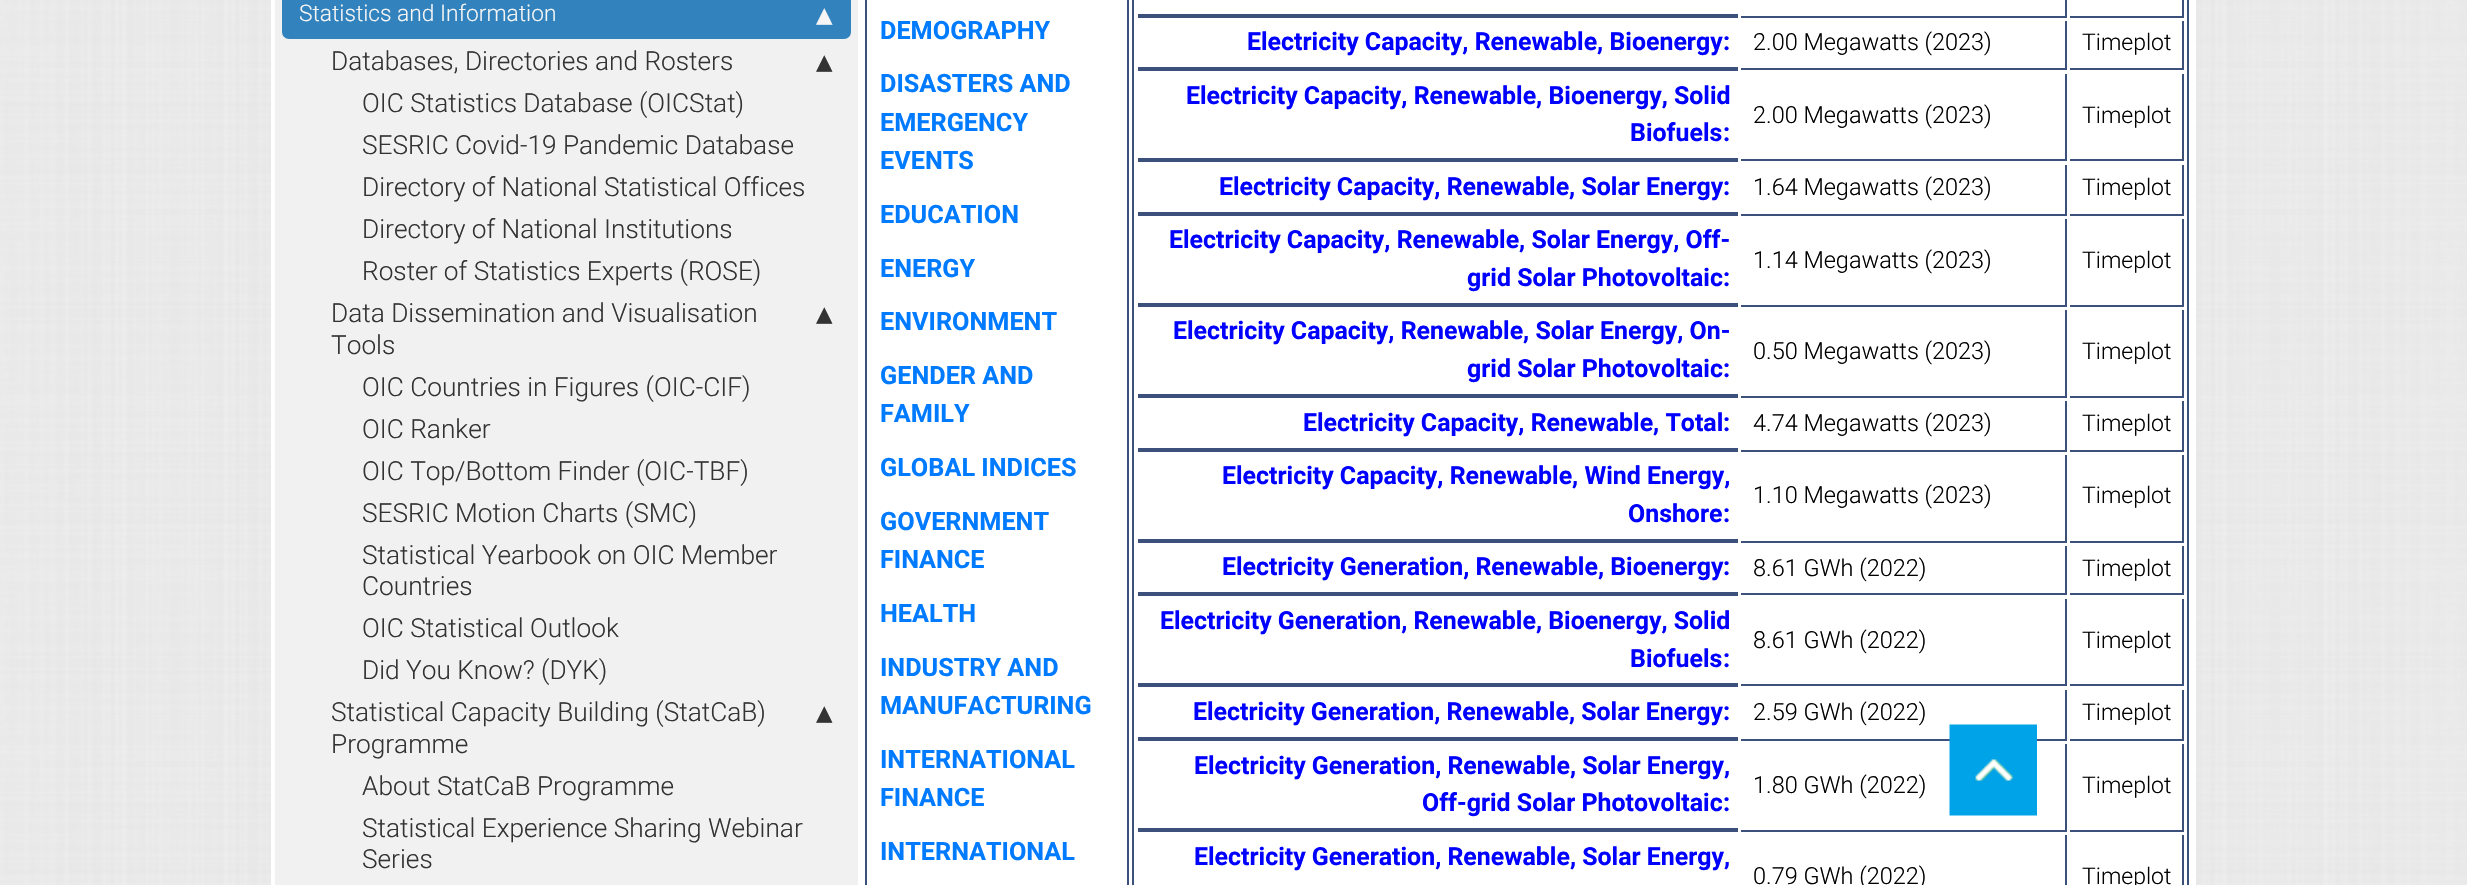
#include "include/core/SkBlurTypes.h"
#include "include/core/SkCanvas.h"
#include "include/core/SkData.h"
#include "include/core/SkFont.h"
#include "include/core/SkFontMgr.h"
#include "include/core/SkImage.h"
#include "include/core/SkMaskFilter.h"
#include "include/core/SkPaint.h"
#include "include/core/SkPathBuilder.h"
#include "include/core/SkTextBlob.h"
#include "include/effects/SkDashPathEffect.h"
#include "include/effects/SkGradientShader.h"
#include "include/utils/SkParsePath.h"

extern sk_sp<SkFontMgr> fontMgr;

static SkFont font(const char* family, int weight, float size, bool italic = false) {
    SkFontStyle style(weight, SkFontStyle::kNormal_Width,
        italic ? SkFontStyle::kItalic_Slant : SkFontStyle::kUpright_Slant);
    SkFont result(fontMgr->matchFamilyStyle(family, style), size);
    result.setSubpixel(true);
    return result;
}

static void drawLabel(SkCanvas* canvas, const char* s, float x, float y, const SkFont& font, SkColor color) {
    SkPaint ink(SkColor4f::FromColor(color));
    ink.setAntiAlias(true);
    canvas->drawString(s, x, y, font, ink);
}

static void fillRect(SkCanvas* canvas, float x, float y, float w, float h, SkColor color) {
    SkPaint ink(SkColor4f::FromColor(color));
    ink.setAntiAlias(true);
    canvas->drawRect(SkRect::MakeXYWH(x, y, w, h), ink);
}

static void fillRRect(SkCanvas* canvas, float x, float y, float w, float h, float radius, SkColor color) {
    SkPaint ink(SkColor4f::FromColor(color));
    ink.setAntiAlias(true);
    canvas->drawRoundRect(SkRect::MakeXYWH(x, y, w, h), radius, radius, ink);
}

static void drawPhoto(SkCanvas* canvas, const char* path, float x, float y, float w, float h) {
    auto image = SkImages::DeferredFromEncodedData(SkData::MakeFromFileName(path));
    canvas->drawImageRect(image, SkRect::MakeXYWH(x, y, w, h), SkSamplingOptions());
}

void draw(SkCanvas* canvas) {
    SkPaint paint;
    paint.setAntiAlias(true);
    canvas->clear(0xFFFFFFFF);
    drawPhoto(canvas, "assets/img1.png", 0, 0, 2467, 885);
    fillRect(canvas, 271, 0, 1925, 885, 0xFFFFFFFF);
    fillRect(canvas, 275, 0, 583, 885, 0xFFF1F1F2);
    fillRRect(canvas, 282, -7, 569, 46, 7, 0xFF3182BD);
    SkFont font1 = font("Roboto", 300, 22.75f);
    drawLabel(canvas, "Statistics and Information", 299, 21, font1, 0xFFF5F5F5);
    SkFont font2 = font("DejaVu Sans", 400, 33);
    drawLabel(canvas, "▴", 816, 25, font2, 0xFFF5F5F5);
    SkFont font3 = font("Roboto", 300, 26.25f);
    drawLabel(canvas, "Databases, Directories and Rosters", 331, 70, font3, 0xFF333333);
    drawLabel(canvas, "▴", 816, 72, font2, 0xFF333333);
    drawLabel(canvas, "OIC Statistics Database (OICStat)", 362, 112, font3, 0xFF333333);
    drawLabel(canvas, "SESRIC Covid-19 Pandemic Database", 362, 154, font3, 0xFF333333);
    drawLabel(canvas, "Directory of National Statistical Offices", 362, 196, font3, 0xFF333333);
    drawLabel(canvas, "Directory of National Institutions", 362, 238, font3, 0xFF333333);
    drawLabel(canvas, "Roster of Statistics Experts (ROSE)", 362, 280, font3, 0xFF333333);
    drawLabel(canvas, "Data Dissemination and Visualisation", 331, 322, font3, 0xFF333333);
    drawLabel(canvas, "▴", 816, 324, font2, 0xFF333333);
    drawLabel(canvas, "Tools", 331, 354, font3, 0xFF333333);
    drawLabel(canvas, "OIC Countries in Figures (OIC-CIF)", 362, 396, font3, 0xFF333333);
    drawLabel(canvas, "OIC Ranker", 362, 438, font3, 0xFF333333);
    drawLabel(canvas, "OIC Top/Bottom Finder (OIC-TBF)", 362, 480, font3, 0xFF333333);
    drawLabel(canvas, "SESRIC Motion Charts (SMC)", 362, 522, font3, 0xFF333333);
    drawLabel(canvas, "Statistical Yearbook on OIC Member", 362, 564, font3, 0xFF333333);
    drawLabel(canvas, "Countries", 362, 595, font3, 0xFF333333);
    drawLabel(canvas, "OIC Statistical Outlook", 362, 637, font3, 0xFF333333);
    drawLabel(canvas, "Did You Know? (DYK)", 362, 679, font3, 0xFF333333);
    drawLabel(canvas, "Statistical Capacity Building (StatCaB)", 331, 721, font3, 0xFF333333);
    drawLabel(canvas, "▴", 816, 723, font2, 0xFF333333);
    drawLabel(canvas, "Programme", 331, 753, font3, 0xFF333333);
    drawLabel(canvas, "About StatCaB Programme", 362, 795, font3, 0xFF333333);
    drawLabel(canvas, "Statistical Experience Sharing Webinar", 362, 837, font3, 0xFF333333);
    drawLabel(canvas, "Series", 362, 868, font3, 0xFF333333);
    paint.setStroke(true);
    paint.setStrokeWidth(2);
    paint.setColor(0xFF3B517B);
    canvas->drawRect(SkRect::MakeXYWH(866, -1, 262, 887), paint);
    SkFont font4 = font("Roboto", 700, 25.25f);
    drawLabel(canvas, "DEMOGRAPHY", 880, 39, font4, 0xFF007BFF);
    drawLabel(canvas, "DISASTERS AND", 880, 92, font4, 0xFF007BFF);
    drawLabel(canvas, "EMERGENCY", 880, 131, font4, 0xFF007BFF);
    drawLabel(canvas, "EVENTS", 880, 169, font4, 0xFF007BFF);
    drawLabel(canvas, "EDUCATION", 880, 223, font4, 0xFF007BFF);
    drawLabel(canvas, "ENERGY", 880, 277, font4, 0xFF007BFF);
    drawLabel(canvas, "ENVIRONMENT", 880, 330, font4, 0xFF007BFF);
    drawLabel(canvas, "GENDER AND", 880, 384, font4, 0xFF007BFF);
    drawLabel(canvas, "FAMILY", 880, 422, font4, 0xFF007BFF);
    drawLabel(canvas, "GLOBAL INDICES", 880, 476, font4, 0xFF007BFF);
    drawLabel(canvas, "GOVERNMENT", 880, 530, font4, 0xFF007BFF);
    drawLabel(canvas, "FINANCE", 880, 568, font4, 0xFF007BFF);
    drawLabel(canvas, "HEALTH", 880, 622, font4, 0xFF007BFF);
    drawLabel(canvas, "INDUSTRY AND", 880, 676, font4, 0xFF007BFF);
    drawLabel(canvas, "MANUFACTURING", 880, 714, font4, 0xFF007BFF);
    drawLabel(canvas, "INTERNATIONAL", 880, 768, font4, 0xFF007BFF);
    drawLabel(canvas, "FINANCE", 880, 806, font4, 0xFF007BFF);
    drawLabel(canvas, "INTERNATIONAL", 880, 860, font4, 0xFF007BFF);
    canvas->drawRect(SkRect::MakeXYWH(1133, -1, 1055, 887), paint);
    fillRect(canvas, 1138, 14, 600, 4, 0xFF3B517B);
    fillRect(canvas, 2065, 0, 2, 18, 0xFF3B517B);
    fillRect(canvas, 1741, 16, 326, 2, 0xFF3B517B);
    fillRect(canvas, 2182, 0, 2, 18, 0xFF3B517B);
    fillRect(canvas, 2070, 16, 114, 2, 0xFF3B517B);
    fillRect(canvas, 1138, 67, 600, 4, 0xFF3B517B);
    SkFont font5 = font("Roboto", 700, 24.9f);
    drawLabel(canvas, "Electricity Capacity, Renewable, Bioenergy", 1247, 50, font5, 0xFF0000FF);
    drawLabel(canvas, ":", 1723, 50, font4, 0xFF0000FF);
    fillRect(canvas, 2065, 21, 2, 49, 0xFF3B517B);
    fillRect(canvas, 1741, 68, 326, 2, 0xFF3B517B);
    SkFont font6 = font("Roboto", 300, 23.5f);
    drawLabel(canvas, "2.00 Megawatts (2023)", 1753, 50, font6, 0xFF000000);
    fillRect(canvas, 2182, 21, 2, 49, 0xFF3B517B);
    fillRect(canvas, 2070, 68, 114, 2, 0xFF3B517B);
    SkFont font7 = font("Roboto", 300, 23);
    drawLabel(canvas, "Timeplot", 2082, 50, font7, 0xFF000000);
    fillRect(canvas, 1138, 158, 600, 4, 0xFF3B517B);
    drawLabel(canvas, "Electricity Capacity, Renewable, Bioenergy, Solid", 1186, 104, font5, 0xFF0000FF);
    drawLabel(canvas, "Biofuels", 1630, 141, font5, 0xFF0000FF);
    drawLabel(canvas, ":", 1723, 141, font4, 0xFF0000FF);
    fillRect(canvas, 2065, 74, 2, 87, 0xFF3B517B);
    fillRect(canvas, 1741, 159, 326, 2, 0xFF3B517B);
    drawLabel(canvas, "2.00 Megawatts (2023)", 1753, 123, font6, 0xFF000000);
    fillRect(canvas, 2182, 74, 2, 87, 0xFF3B517B);
    fillRect(canvas, 2070, 159, 114, 2, 0xFF3B517B);
    drawLabel(canvas, "Timeplot", 2082, 123, font7, 0xFF000000);
    fillRect(canvas, 1138, 212, 600, 4, 0xFF3B517B);
    drawLabel(canvas, "Electricity Capacity, Renewable, Solar Energy", 1219, 195, font5, 0xFF0000FF);
    drawLabel(canvas, ":", 1723, 195, font4, 0xFF0000FF);
    fillRect(canvas, 2065, 165, 2, 50, 0xFF3B517B);
    fillRect(canvas, 1741, 214, 326, 2, 0xFF3B517B);
    drawLabel(canvas, "1.64 Megawatts (2023)", 1753, 195, font6, 0xFF000000);
    fillRect(canvas, 2182, 165, 2, 50, 0xFF3B517B);
    fillRect(canvas, 2070, 214, 114, 2, 0xFF3B517B);
    drawLabel(canvas, "Timeplot", 2082, 195, font7, 0xFF000000);
    fillRect(canvas, 1138, 303, 600, 4, 0xFF3B517B);
    drawLabel(canvas, "Electricity Capacity, Renewable, Solar Energy, Off-", 1169, 248, font5, 0xFF0000FF);
    drawLabel(canvas, "grid Solar Photovoltaic", 1467, 286, font5, 0xFF0000FF);
    drawLabel(canvas, ":", 1723, 286, font4, 0xFF0000FF);
    fillRect(canvas, 2065, 219, 2, 87, 0xFF3B517B);
    fillRect(canvas, 1741, 305, 326, 2, 0xFF3B517B);
    drawLabel(canvas, "1.14 Megawatts (2023)", 1753, 268, font6, 0xFF000000);
    fillRect(canvas, 2182, 219, 2, 87, 0xFF3B517B);
    fillRect(canvas, 2070, 305, 114, 2, 0xFF3B517B);
    drawLabel(canvas, "Timeplot", 2082, 268, font7, 0xFF000000);
    fillRect(canvas, 1138, 394, 600, 4, 0xFF3B517B);
    drawLabel(canvas, "Electricity Capacity, Renewable, Solar Energy, On-", 1173, 339, font5, 0xFF0000FF);
    drawLabel(canvas, "grid Solar Photovoltaic", 1467, 377, font5, 0xFF0000FF);
    drawLabel(canvas, ":", 1723, 377, font4, 0xFF0000FF);
    fillRect(canvas, 2065, 310, 2, 87, 0xFF3B517B);
    fillRect(canvas, 1741, 396, 326, 2, 0xFF3B517B);
    drawLabel(canvas, "0.50 Megawatts (2023)", 1753, 359, font6, 0xFF000000);
    fillRect(canvas, 2182, 310, 2, 87, 0xFF3B517B);
    fillRect(canvas, 2070, 396, 114, 2, 0xFF3B517B);
    drawLabel(canvas, "Timeplot", 2082, 359, font7, 0xFF000000);
    fillRect(canvas, 1138, 448, 600, 4, 0xFF3B517B);
    drawLabel(canvas, "Electricity Capacity, Renewable, Total", 1303, 431, font5, 0xFF0000FF);
    drawLabel(canvas, ":", 1723, 431, font4, 0xFF0000FF);
    fillRect(canvas, 2065, 401, 2, 51, 0xFF3B517B);
    fillRect(canvas, 1741, 450, 326, 2, 0xFF3B517B);
    drawLabel(canvas, "4.74 Megawatts (2023)", 1753, 431, font6, 0xFF000000);
    fillRect(canvas, 2182, 401, 2, 51, 0xFF3B517B);
    fillRect(canvas, 2070, 450, 114, 2, 0xFF3B517B);
    drawLabel(canvas, "Timeplot", 2082, 431, font7, 0xFF000000);
    fillRect(canvas, 1138, 539, 600, 4, 0xFF3B517B);
    drawLabel(canvas, "Electricity Capacity, Renewable, Wind Energy,", 1222, 484, font5, 0xFF0000FF);
    drawLabel(canvas, "Onshore", 1628, 522, font5, 0xFF0000FF);
    drawLabel(canvas, ":", 1723, 522, font4, 0xFF0000FF);
    fillRect(canvas, 2065, 455, 2, 88, 0xFF3B517B);
    fillRect(canvas, 1741, 541, 326, 2, 0xFF3B517B);
    drawLabel(canvas, "1.10 Megawatts (2023)", 1753, 503, font6, 0xFF000000);
    fillRect(canvas, 2182, 455, 2, 88, 0xFF3B517B);
    fillRect(canvas, 2070, 541, 114, 2, 0xFF3B517B);
    drawLabel(canvas, "Timeplot", 2082, 503, font7, 0xFF000000);
    fillRect(canvas, 1138, 592, 600, 4, 0xFF3B517B);
    drawLabel(canvas, "Electricity Generation, Renewable, Bioenergy", 1222, 575, font5, 0xFF0000FF);
    drawLabel(canvas, ":", 1723, 575, font4, 0xFF0000FF);
    fillRect(canvas, 2065, 546, 2, 49, 0xFF3B517B);
    fillRect(canvas, 1741, 593, 326, 2, 0xFF3B517B);
    drawLabel(canvas, "8.61 GWh (2022)", 1753, 576, font6, 0xFF000000);
    fillRect(canvas, 2182, 546, 2, 49, 0xFF3B517B);
    fillRect(canvas, 2070, 593, 114, 2, 0xFF3B517B);
    drawLabel(canvas, "Timeplot", 2082, 576, font7, 0xFF000000);
    fillRect(canvas, 1138, 683, 600, 4, 0xFF3B517B);
    drawLabel(canvas, "Electricity Generation, Renewable, Bioenergy, Solid", 1160, 629, font5, 0xFF0000FF);
    drawLabel(canvas, "Biofuels", 1630, 667, font5, 0xFF0000FF);
    drawLabel(canvas, ":", 1723, 667, font4, 0xFF0000FF);
    fillRect(canvas, 2065, 599, 2, 87, 0xFF3B517B);
    fillRect(canvas, 1741, 684, 326, 2, 0xFF3B517B);
    drawLabel(canvas, "8.61 GWh (2022)", 1753, 648, font6, 0xFF000000);
    fillRect(canvas, 2182, 599, 2, 87, 0xFF3B517B);
    fillRect(canvas, 2070, 684, 114, 2, 0xFF3B517B);
    drawLabel(canvas, "Timeplot", 2082, 648, font7, 0xFF000000);
    fillRect(canvas, 1138, 737, 600, 4, 0xFF3B517B);
    drawLabel(canvas, "Electricity Generation, Renewable, Solar Energy", 1193, 720, font5, 0xFF0000FF);
    drawLabel(canvas, ":", 1723, 720, font4, 0xFF0000FF);
    fillRect(canvas, 2065, 690, 2, 50, 0xFF3B517B);
    fillRect(canvas, 1741, 739, 326, 2, 0xFF3B517B);
    drawLabel(canvas, "2.59 GWh (2022)", 1753, 720, font6, 0xFF000000);
    fillRect(canvas, 2182, 690, 2, 50, 0xFF3B517B);
    fillRect(canvas, 2070, 739, 114, 2, 0xFF3B517B);
    drawLabel(canvas, "Timeplot", 2082, 720, font7, 0xFF000000);
    fillRect(canvas, 1138, 828, 600, 4, 0xFF3B517B);
    drawLabel(canvas, "Electricity Generation, Renewable, Solar Energy,", 1194, 774, font5, 0xFF0000FF);
    drawLabel(canvas, "Off-grid Solar Photovoltaic", 1422, 811, font5, 0xFF0000FF);
    drawLabel(canvas, ":", 1723, 811, font4, 0xFF0000FF);
    fillRect(canvas, 2065, 744, 2, 87, 0xFF3B517B);
    fillRect(canvas, 1741, 830, 326, 2, 0xFF3B517B);
    drawLabel(canvas, "1.80 GWh (2022)", 1753, 793, font6, 0xFF000000);
    fillRect(canvas, 2182, 744, 2, 87, 0xFF3B517B);
    fillRect(canvas, 2070, 830, 114, 2, 0xFF3B517B);
    drawLabel(canvas, "Timeplot", 2082, 793, font7, 0xFF000000);
    drawLabel(canvas, "Electricity Generation, Renewable, Solar Energy,", 1194, 865, font5, 0xFF0000FF);
    fillRect(canvas, 2065, 835, 2, 50, 0xFF3B517B);
    drawLabel(canvas, "0.79 GWh (2022)", 1753, 884, font6, 0xFF000000);
    fillRect(canvas, 2182, 835, 2, 50, 0xFF3B517B);
    drawLabel(canvas, "Timeplot", 2082, 884, font7, 0xFF000000);
    drawPhoto(canvas, "assets/img2.png", 1949, 724, 88, 92);
}
